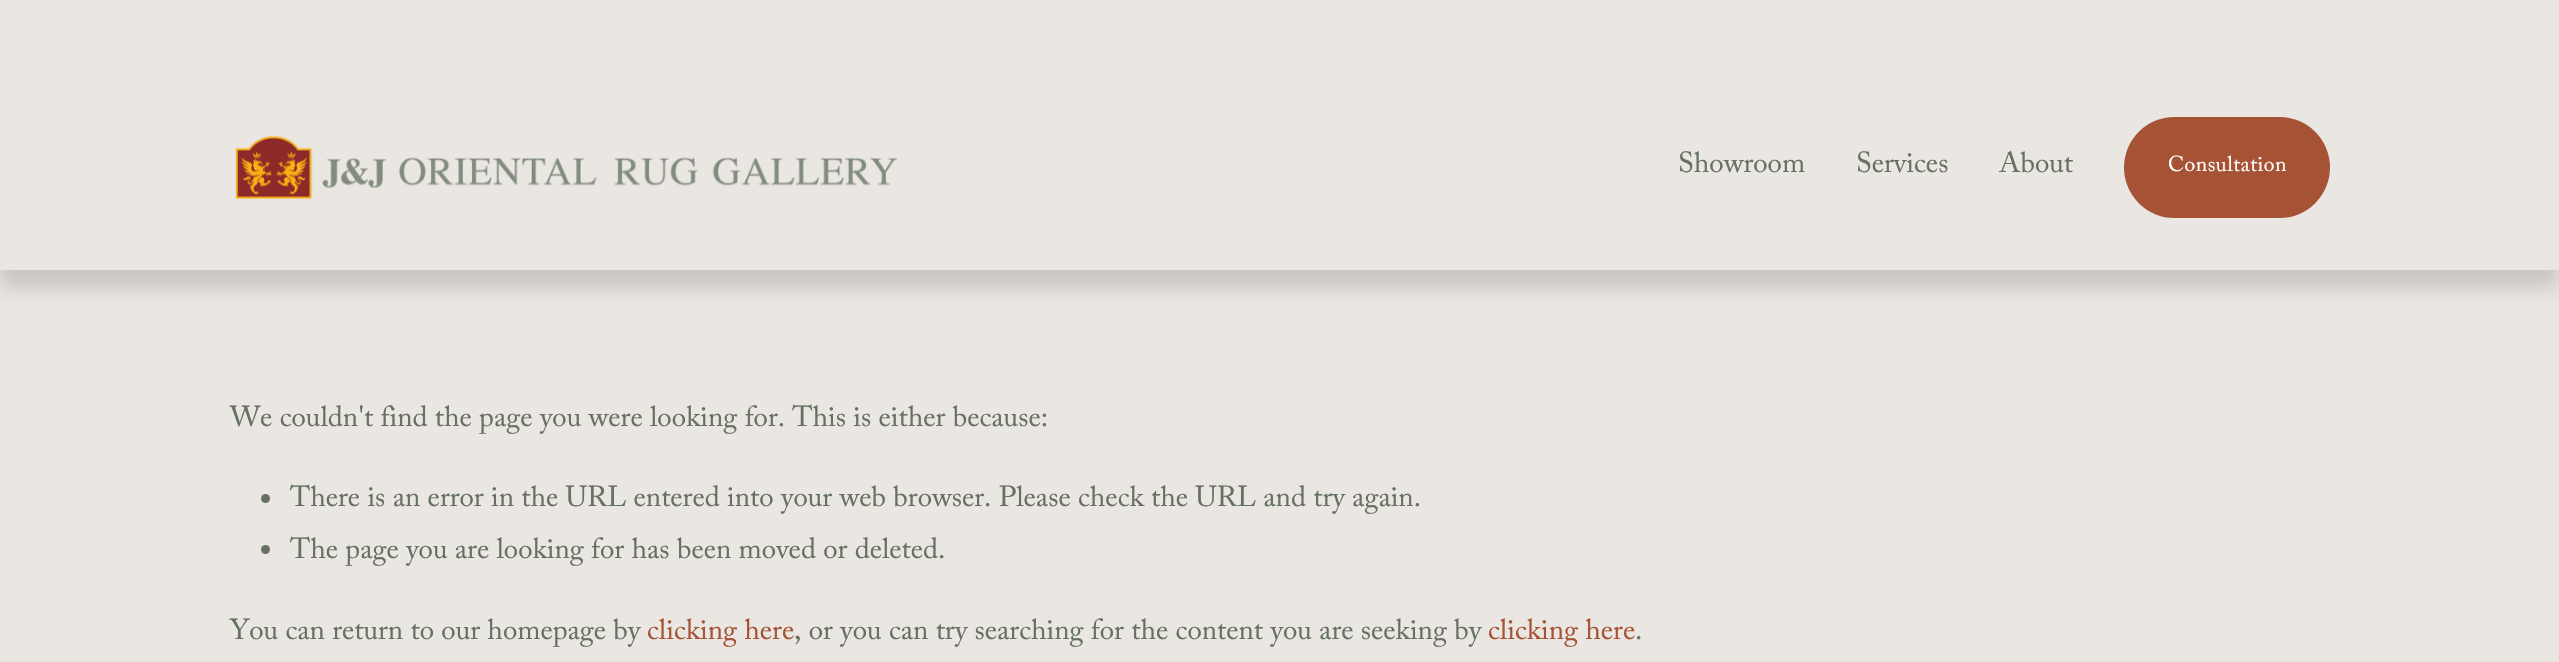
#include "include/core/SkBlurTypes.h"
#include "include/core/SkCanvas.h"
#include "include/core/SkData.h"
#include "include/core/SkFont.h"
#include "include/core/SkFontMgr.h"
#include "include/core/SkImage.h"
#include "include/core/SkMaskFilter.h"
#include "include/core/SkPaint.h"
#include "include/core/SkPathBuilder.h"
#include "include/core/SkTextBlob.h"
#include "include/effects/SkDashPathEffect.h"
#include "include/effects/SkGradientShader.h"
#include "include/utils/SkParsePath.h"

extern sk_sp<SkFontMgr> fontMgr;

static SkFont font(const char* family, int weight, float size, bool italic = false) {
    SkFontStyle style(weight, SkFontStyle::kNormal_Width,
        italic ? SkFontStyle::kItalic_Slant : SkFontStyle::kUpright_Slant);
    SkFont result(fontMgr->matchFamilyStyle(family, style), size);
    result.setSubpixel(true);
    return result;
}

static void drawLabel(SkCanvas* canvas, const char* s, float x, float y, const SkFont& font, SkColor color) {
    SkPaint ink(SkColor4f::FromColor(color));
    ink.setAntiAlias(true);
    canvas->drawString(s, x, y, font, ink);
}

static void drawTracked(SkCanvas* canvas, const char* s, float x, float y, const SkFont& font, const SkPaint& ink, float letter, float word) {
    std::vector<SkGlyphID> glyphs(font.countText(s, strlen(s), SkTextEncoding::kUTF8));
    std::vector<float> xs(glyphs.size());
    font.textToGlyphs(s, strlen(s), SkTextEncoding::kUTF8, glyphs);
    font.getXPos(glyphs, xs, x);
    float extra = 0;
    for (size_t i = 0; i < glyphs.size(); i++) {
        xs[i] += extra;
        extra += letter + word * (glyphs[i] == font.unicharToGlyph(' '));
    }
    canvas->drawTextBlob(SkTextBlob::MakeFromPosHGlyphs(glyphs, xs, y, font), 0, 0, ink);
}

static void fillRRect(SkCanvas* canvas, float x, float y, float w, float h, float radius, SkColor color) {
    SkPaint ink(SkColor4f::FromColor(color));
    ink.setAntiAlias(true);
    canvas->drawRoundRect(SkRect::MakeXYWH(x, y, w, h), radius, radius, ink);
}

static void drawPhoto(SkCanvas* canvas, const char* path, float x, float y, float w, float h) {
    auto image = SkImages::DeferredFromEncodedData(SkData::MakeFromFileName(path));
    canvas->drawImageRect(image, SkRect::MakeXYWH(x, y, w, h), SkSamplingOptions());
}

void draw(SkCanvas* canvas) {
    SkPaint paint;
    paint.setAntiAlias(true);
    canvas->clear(0xFFEAE6E1);
    canvas->save();
    canvas->clipRect(SkRect::MakeXYWH(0, 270, 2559, 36));
    paint.setColor(0xFFCAC6C2);
    paint.setMaskFilter(SkMaskFilter::MakeBlur(kNormal_SkBlurStyle, 9));
    canvas->drawRect(SkRect::MakeXYWH(0, 84, 2559, 204), paint);
    paint.setMaskFilter(nullptr);
    canvas->restore();
    drawPhoto(canvas, "assets/img1.png", 235, 135, 663, 65);
    SkFont font1 = font("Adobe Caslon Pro", 400, 28.8f);
    drawLabel(canvas, "Showroom", 1678, 172, font1, 0xFF667063);
    drawLabel(canvas, "Services", 1856, 172, font1, 0xFF667063);
    drawLabel(canvas, "About", 1999, 172, font1, 0xFF667063);
    fillRRect(canvas, 2124, 117, 206, 101, 50.5f, 0xFFA55235);
    SkFont font2 = font("Adobe Caslon Pro", 400, 21.5f);
    paint.setColor(0xFFFFFFFF);
    drawTracked(canvas, "Consultation", 2168, 171, font2, paint, 0.5f, 0);
    drawLabel(canvas, "We couldn't find the page you were looking for. This is either because:", 230, 426, font1, 0xFF667063);
    paint.setColor(0xFF667063);
    canvas->drawCircle(265.5f, 498.5f, 4.5f, paint);
    drawLabel(canvas, "There is an error in the URL entered into your web browser. Please check the URL and try again.", 290, 506, font1, 0xFF667063);
    canvas->drawCircle(265.5f, 549.5f, 4.5f, paint);
    drawLabel(canvas, "The page you are looking for has been moved or deleted.", 290, 558, font1, 0xFF667063);
    drawLabel(canvas, "You can return to our homepage by", 230, 639, font1, 0xFF667063);
    drawLabel(canvas, "clicking here", 647, 639, font1, 0xFFA55235);
    drawLabel(canvas, ", or you can try searching for the content you are seeking by", 794, 639, font1, 0xFF667063);
    drawLabel(canvas, "clicking here", 1488, 639, font1, 0xFFA55235);
    drawLabel(canvas, ".", 1635, 639, font1, 0xFF667063);
}
